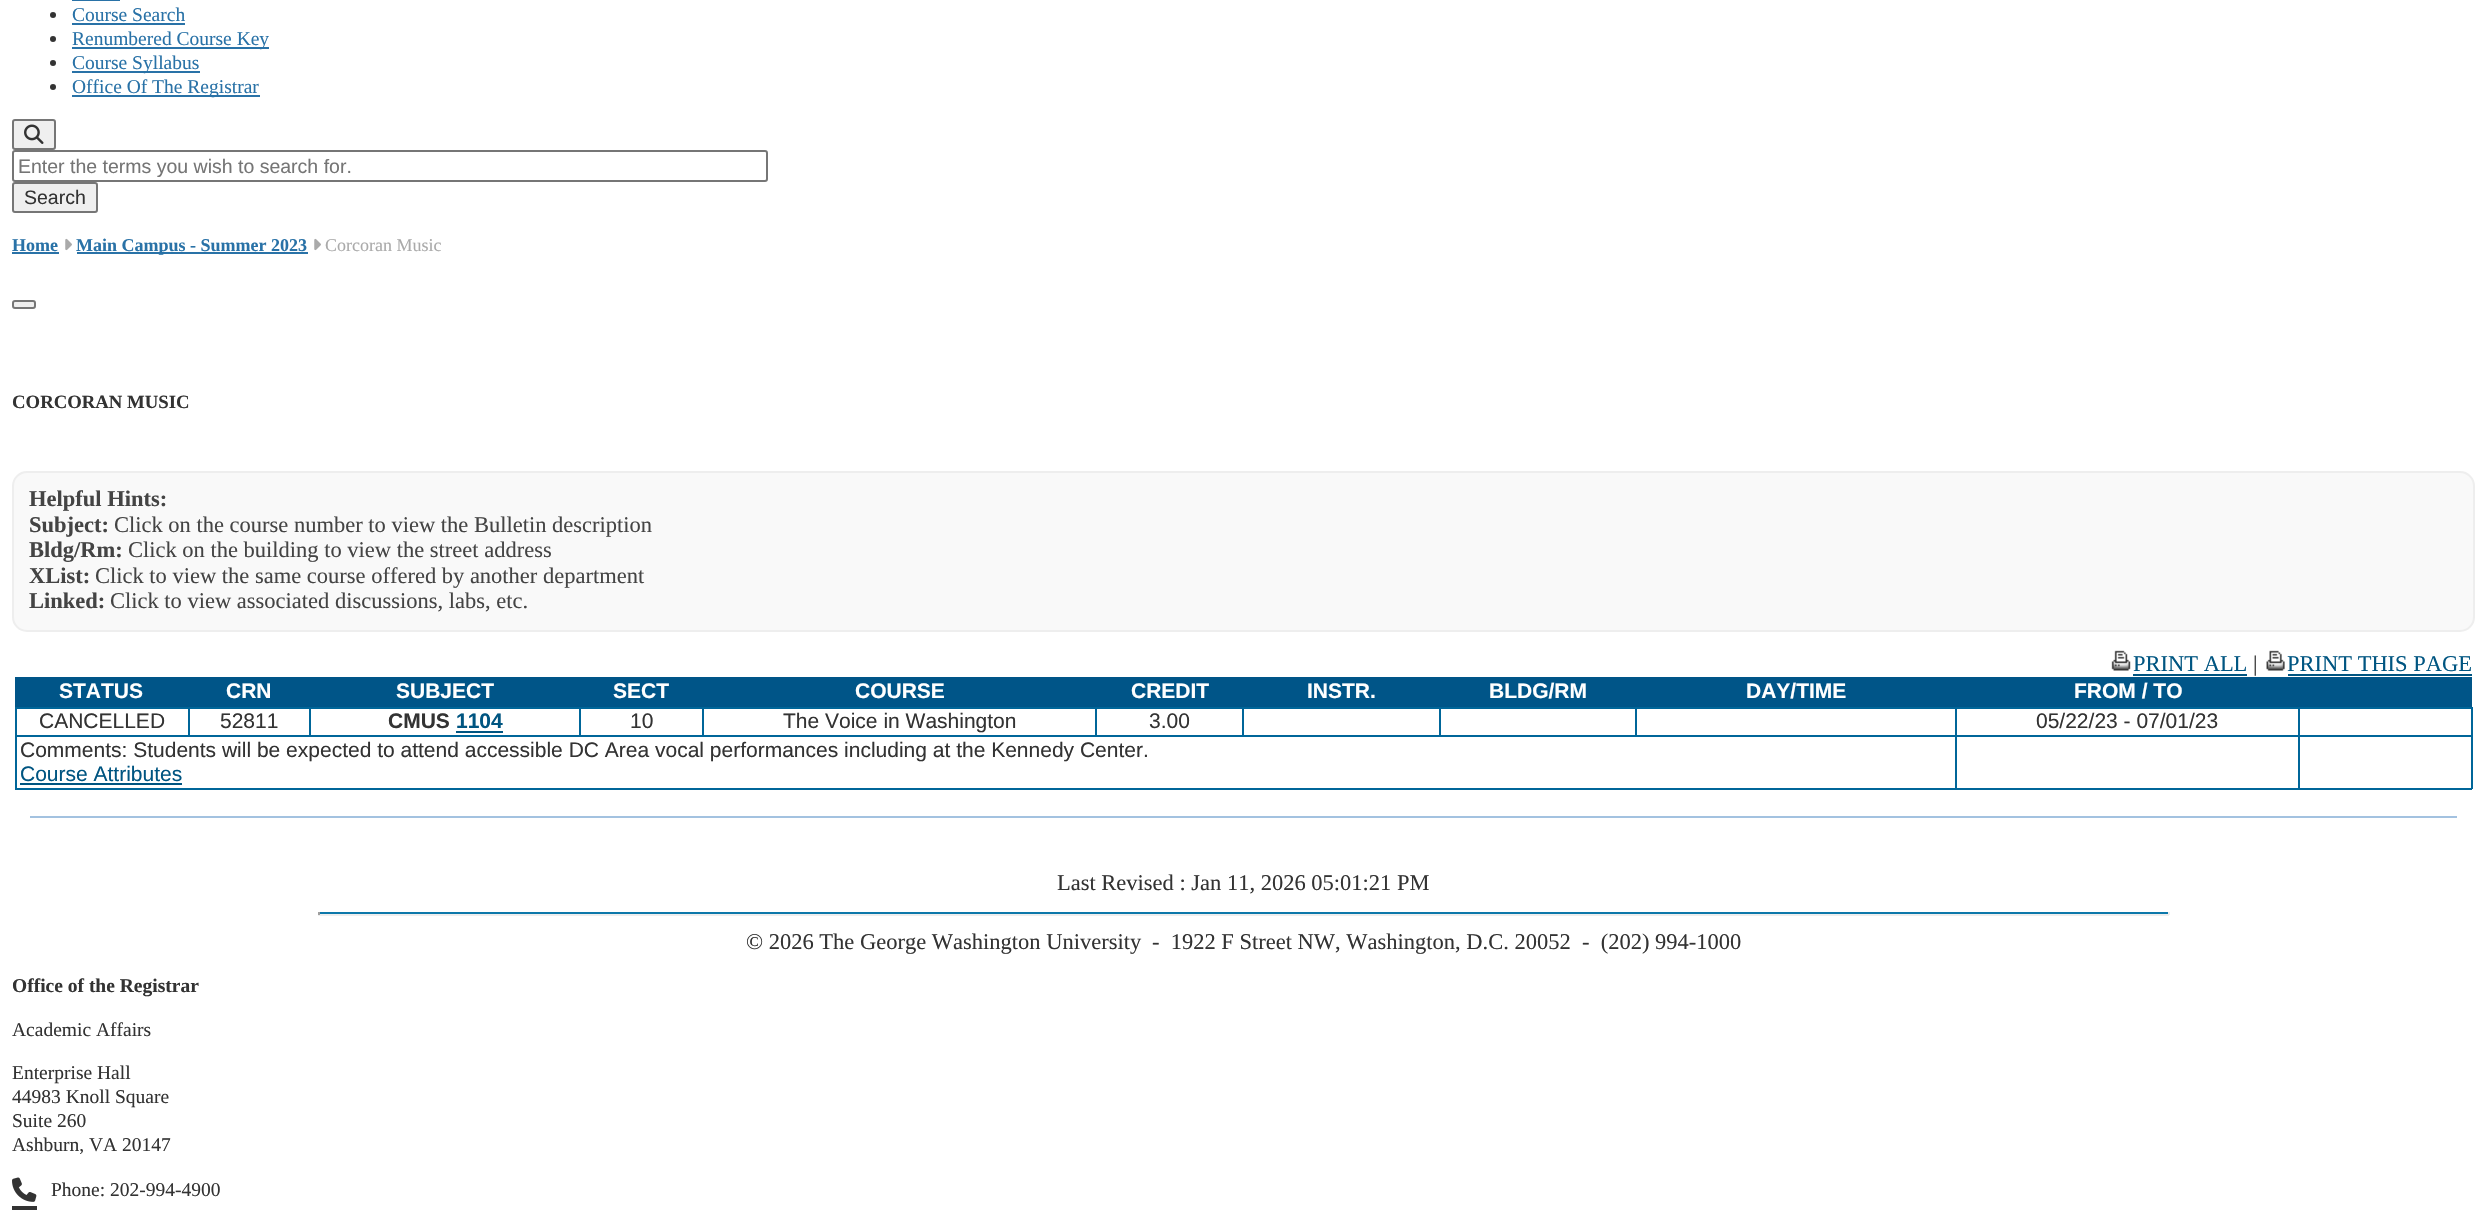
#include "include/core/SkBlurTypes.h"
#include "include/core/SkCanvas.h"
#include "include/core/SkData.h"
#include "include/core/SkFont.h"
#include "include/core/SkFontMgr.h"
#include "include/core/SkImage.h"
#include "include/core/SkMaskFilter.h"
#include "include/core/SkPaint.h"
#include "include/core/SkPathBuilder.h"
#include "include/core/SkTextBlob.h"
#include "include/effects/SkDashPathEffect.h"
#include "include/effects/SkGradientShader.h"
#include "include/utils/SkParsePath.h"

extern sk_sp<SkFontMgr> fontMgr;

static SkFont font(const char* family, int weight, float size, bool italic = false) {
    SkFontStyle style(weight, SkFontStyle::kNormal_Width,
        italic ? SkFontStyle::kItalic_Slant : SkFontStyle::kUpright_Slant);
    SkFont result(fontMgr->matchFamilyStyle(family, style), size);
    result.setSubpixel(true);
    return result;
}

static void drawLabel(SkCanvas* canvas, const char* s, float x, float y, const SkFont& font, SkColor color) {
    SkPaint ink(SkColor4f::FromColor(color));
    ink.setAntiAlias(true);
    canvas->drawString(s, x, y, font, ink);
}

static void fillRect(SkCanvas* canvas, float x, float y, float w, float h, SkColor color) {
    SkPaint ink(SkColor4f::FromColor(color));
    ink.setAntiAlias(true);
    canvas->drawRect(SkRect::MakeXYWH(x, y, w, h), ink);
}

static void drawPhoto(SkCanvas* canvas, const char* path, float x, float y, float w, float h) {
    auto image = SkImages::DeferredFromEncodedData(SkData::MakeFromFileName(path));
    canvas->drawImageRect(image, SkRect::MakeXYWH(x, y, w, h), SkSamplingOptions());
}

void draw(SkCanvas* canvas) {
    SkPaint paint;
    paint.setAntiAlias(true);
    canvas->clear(0xFFFFFFFF);
    fillRect(canvas, 72, 0, 48, 1, 0xFF2972A7);
    paint.setColor(0xFF333333);
    canvas->drawCircle(53, 15, 3, paint);
    SkFont font1 = font("Liberation Serif", 400, 19.5f);
    drawLabel(canvas, "Course Search", 72, 21, font1, 0xFF2972A7);
    fillRect(canvas, 72, 23, 113, 2, 0xFF2972A7);
    canvas->drawCircle(53, 39, 3, paint);
    fillRect(canvas, 72, 47, 197, 2, 0xFF2972A7);
    drawLabel(canvas, "Renumbered Course Key", 72, 45, font1, 0xFF2972A7);
    canvas->drawCircle(53, 63, 3, paint);
    fillRect(canvas, 72, 71, 128, 2, 0xFF2972A7);
    drawLabel(canvas, "Course Syllabus", 72, 69, font1, 0xFF2972A7);
    canvas->drawCircle(53, 87, 3, paint);
    fillRect(canvas, 72, 95, 188, 2, 0xFF2972A7);
    drawLabel(canvas, "Office Of The Registrar", 72, 93, font1, 0xFF2972A7);
    paint.setColor(0xFFEFEFEF);
    canvas->drawRoundRect(SkRect::MakeXYWH(13, 120, 42, 29), 2, 2, paint);
    paint.setStroke(true);
    paint.setStrokeWidth(2);
    paint.setColor(0xFF767676);
    canvas->drawRoundRect(SkRect::MakeXYWH(13, 120, 42, 29), 2, 2, paint);
    drawPhoto(canvas, "assets/img1.png", 24, 124, 20, 20);
    canvas->drawRoundRect(SkRect::MakeXYWH(13, 151, 754, 30), 2, 2, paint);
    SkFont font2 = font("Liberation Sans", 400, 19.5f);
    drawLabel(canvas, "Enter the terms you wish to search for.", 18, 173, font2, 0xFF757575);
    paint.setStroke(false);
    paint.setColor(0xFFEFEFEF);
    canvas->drawRoundRect(SkRect::MakeXYWH(13, 183, 84, 29), 2, 2, paint);
    paint.setStroke(true);
    paint.setColor(0xFF767676);
    canvas->drawRoundRect(SkRect::MakeXYWH(13, 183, 84, 29), 2, 2, paint);
    drawLabel(canvas, "Search", 24, 204, font2, 0xFF333333);
    SkFont font3 = font("Liberation Serif", 700, 18);
    drawLabel(canvas, "Home", 12, 251, font3, 0xFF2972A7);
    fillRect(canvas, 12, 252, 47, 2, 0xFF2972A7);
    drawPhoto(canvas, "assets/img2.png", 65, 238, 7, 13);
    fillRect(canvas, 77, 252, 231, 2, 0xFF2972A7);
    drawLabel(canvas, "Main Campus - Summer 2023", 76, 251, font3, 0xFF2972A7);
    drawPhoto(canvas, "assets/img2.png", 314, 238, 7, 13);
    SkFont font4 = font("Liberation Serif", 400, 18);
    drawLabel(canvas, "Corcoran Music", 325, 251, font4, 0xFFAAAAAA);
    paint.setStroke(false);
    paint.setColor(0xFFEFEFEF);
    canvas->drawRoundRect(SkRect::MakeXYWH(13, 301, 22, 7), 2, 2, paint);
    paint.setStroke(true);
    paint.setColor(0xFF767676);
    canvas->drawRoundRect(SkRect::MakeXYWH(13, 301, 22, 7), 2, 2, paint);
    SkFont font5 = font("Liberation Serif", 700, 18.75f);
    drawLabel(canvas, "CORCORAN MUSIC", 12, 408, font5, 0xFF333333);
    paint.setStroke(false);
    paint.setColor(0xFFF9F9F9);
    canvas->drawRoundRect(SkRect::MakeXYWH(13, 472, 2461, 159), 14, 14, paint);
    paint.setStroke(true);
    paint.setColor(0xFFEEEEEE);
    canvas->drawRoundRect(SkRect::MakeXYWH(13, 472, 2461, 159), 14, 14, paint);
    SkFont font6 = font("Liberation Serif", 700, 22.5f);
    drawLabel(canvas, "Helpful Hints:", 29, 506, font6, 0xFF444444);
    drawLabel(canvas, "Subject:", 29, 532, font6, 0xFF444444);
    SkFont font7 = font("Liberation Serif", 400, 22.5f);
    drawLabel(canvas, "Click on the course number to view the Bulletin description", 114, 532, font7, 0xFF444444);
    drawLabel(canvas, "Bldg/Rm:", 29, 557, font6, 0xFF444444);
    drawLabel(canvas, "Click on the building to view the street address", 128, 557, font7, 0xFF444444);
    drawLabel(canvas, "XList:", 29, 583, font6, 0xFF444444);
    drawLabel(canvas, "Click to view the same course offered by another department", 95, 583, font7, 0xFF444444);
    drawLabel(canvas, "Linked:", 29, 608, font6, 0xFF444444);
    drawLabel(canvas, "Click to view associated discussions, labs, etc.", 110, 608, font7, 0xFF444444);
    drawPhoto(canvas, "assets/img3.png", 2111, 650, 20, 21);
    drawLabel(canvas, "PRINT ALL", 2133, 671, font7, 0xFF005581);
    fillRect(canvas, 2133, 674, 114, 2, 0xFF005581);
    drawLabel(canvas, "|", 2253, 671, font7, 0xFF333333);
    drawPhoto(canvas, "assets/img4.png", 2266, 650, 19, 21);
    drawLabel(canvas, "PRINT THIS PAGE", 2287, 671, font7, 0xFF005581);
    fillRect(canvas, 2288, 674, 184, 2, 0xFF005581);
    fillRect(canvas, 15, 677, 2457, 30, 0xFF005588);
    SkFont font8 = font("Liberation Sans", 700, 21);
    drawLabel(canvas, "STATUS", 59, 698, font8, 0xFFFFFFFF);
    drawLabel(canvas, "CRN", 226, 698, font8, 0xFFFFFFFF);
    drawLabel(canvas, "SUBJECT", 396, 698, font8, 0xFFFFFFFF);
    drawLabel(canvas, "SECT", 613, 698, font8, 0xFFFFFFFF);
    drawLabel(canvas, "COURSE", 855, 698, font8, 0xFFFFFFFF);
    drawLabel(canvas, "CREDIT", 1131, 698, font8, 0xFFFFFFFF);
    drawLabel(canvas, "INSTR.", 1307, 698, font8, 0xFFFFFFFF);
    drawLabel(canvas, "BLDG/RM", 1489, 698, font8, 0xFFFFFFFF);
    drawLabel(canvas, "DAY/TIME", 1746, 698, font8, 0xFFFFFFFF);
    drawLabel(canvas, "FROM / TO", 2074, 698, font8, 0xFFFFFFFF);
    fillRect(canvas, 15, 709, 2, 79, 0xFF006699);
    fillRect(canvas, 2298, 707, 174, 2, 0xFF006699);
    fillRect(canvas, 2298, 735, 174, 2, 0xFF006699);
    fillRect(canvas, 2471, 735, 2, 54, 0xFF006699);
    fillRect(canvas, 2298, 788, 174, 2, 0xFF006699);
    fillRect(canvas, 2298, 735, 2, 54, 0xFF006699);
    fillRect(canvas, 1955, 735, 345, 2, 0xFF006699);
    fillRect(canvas, 2298, 707, 2, 30, 0xFF006699);
    fillRect(canvas, 1955, 707, 345, 2, 0xFF006699);
    fillRect(canvas, 1955, 788, 345, 2, 0xFF006699);
    fillRect(canvas, 1955, 735, 2, 54, 0xFF006699);
    fillRect(canvas, 15, 735, 1941, 2, 0xFF006699);
    fillRect(canvas, 1955, 707, 2, 30, 0xFF006699);
    fillRect(canvas, 1635, 707, 321, 2, 0xFF006699);
    fillRect(canvas, 1635, 707, 2, 30, 0xFF006699);
    fillRect(canvas, 1439, 707, 198, 2, 0xFF006699);
    fillRect(canvas, 1439, 707, 2, 30, 0xFF006699);
    fillRect(canvas, 1242, 707, 198, 2, 0xFF006699);
    fillRect(canvas, 1242, 707, 2, 30, 0xFF006699);
    fillRect(canvas, 1095, 707, 149, 2, 0xFF006699);
    fillRect(canvas, 1095, 707, 2, 30, 0xFF006699);
    fillRect(canvas, 702, 707, 395, 2, 0xFF006699);
    fillRect(canvas, 702, 707, 2, 30, 0xFF006699);
    fillRect(canvas, 579, 707, 125, 2, 0xFF006699);
    fillRect(canvas, 579, 707, 2, 30, 0xFF006699);
    fillRect(canvas, 309, 707, 272, 2, 0xFF006699);
    fillRect(canvas, 309, 707, 2, 30, 0xFF006699);
    fillRect(canvas, 188, 707, 123, 2, 0xFF006699);
    fillRect(canvas, 188, 707, 2, 30, 0xFF006699);
    fillRect(canvas, 15, 707, 174, 2, 0xFF006699);
    SkFont font9 = font("Liberation Sans", 400, 21);
    drawLabel(canvas, "CANCELLED", 39, 728, font9, 0xFF333333);
    drawLabel(canvas, "52811", 220, 728, font9, 0xFF333333);
    drawLabel(canvas, "CMUS", 388, 728, font8, 0xFF333333);
    drawLabel(canvas, "1104", 456, 728, font8, 0xFF005581);
    fillRect(canvas, 456, 731, 47, 2, 0xFF005581);
    drawLabel(canvas, "10", 630, 728, font9, 0xFF333333);
    drawLabel(canvas, "The Voice in Washington", 783, 728, font9, 0xFF333333);
    drawLabel(canvas, "3.00", 1149, 728, font9, 0xFF333333);
    drawLabel(canvas, "05/22/23 - 07/01/23", 2036, 728, font9, 0xFF333333);
    fillRect(canvas, 2471, 707, 2, 30, 0xFF006699);
    fillRect(canvas, 15, 788, 1941, 2, 0xFF006699);
    drawLabel(canvas, "Comments: Students will be expected to attend accessible DC Area vocal performances including at the Kennedy Center.", 20, 757, font9, 0xFF333333);
    drawLabel(canvas, "Course Attributes", 20, 781, font9, 0xFF005581);
    fillRect(canvas, 20, 783, 162, 2, 0xFF005581);
    fillRect(canvas, 30, 816, 2427, 2, 0xFFA3C2E0);
    drawLabel(canvas, "Last Revised : Jan 11, 2026 05:01:21 PM", 1057, 890, font7, 0xFF333333);
    fillRect(canvas, 318, 912, 1851, 2, 0xFF0D78AA);
    fillRect(canvas, 2168, 912, 2, 3, 0xFFEEEEEE);
    fillRect(canvas, 318, 914, 1851, 2, 0xFFEEEEEE);
    fillRect(canvas, 318, 912, 2, 3, 0xFF9F9F9F);
    drawLabel(canvas, "© 2026 The George Washington University", 746, 949, font7, 0xFF333333);
    drawLabel(canvas, "-  1922 F Street NW, Washington, D.C. 20052", 1152, 949, font7, 0xFF333333);
    drawLabel(canvas, "-  (202) 994-1000", 1582, 949, font7, 0xFF333333);
    SkFont font10 = font("Liberation Serif", 700, 19.5f);
    drawLabel(canvas, "Office of the Registrar", 12, 992, font10, 0xFF333333);
    drawLabel(canvas, "Academic Affairs", 12, 1036, font1, 0xFF333333);
    drawLabel(canvas, "Enterprise Hall", 12, 1079, font1, 0xFF333333);
    drawLabel(canvas, "44983 Knoll Square", 12, 1103, font1, 0xFF333333);
    drawLabel(canvas, "Suite 260", 12, 1127, font1, 0xFF333333);
    drawLabel(canvas, "Ashburn, VA 20147", 12, 1151, font1, 0xFF333333);
    drawPhoto(canvas, "assets/img5.png", 12, 1177, 25, 25);
    drawLabel(canvas, "Phone: 202-994-4900", 51, 1196, font1, 0xFF333333);
    fillRect(canvas, 12, 1206, 25, 4, 0xFF333333);
}
